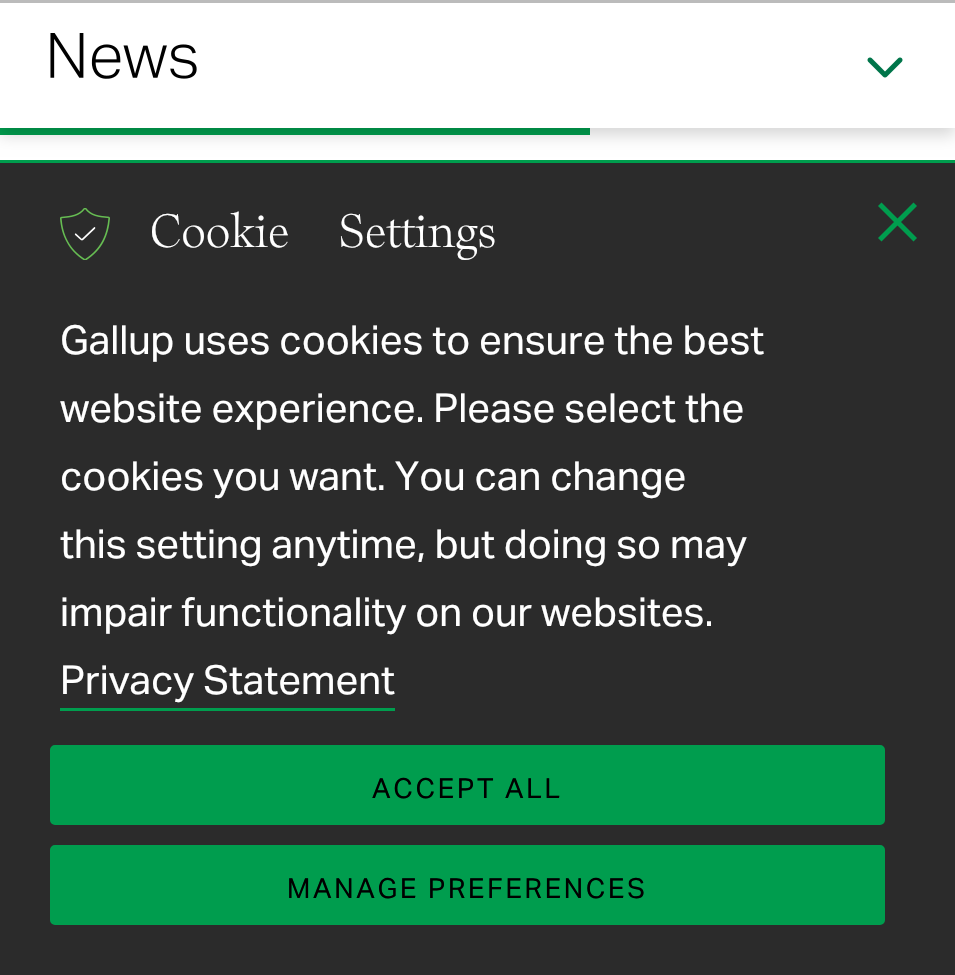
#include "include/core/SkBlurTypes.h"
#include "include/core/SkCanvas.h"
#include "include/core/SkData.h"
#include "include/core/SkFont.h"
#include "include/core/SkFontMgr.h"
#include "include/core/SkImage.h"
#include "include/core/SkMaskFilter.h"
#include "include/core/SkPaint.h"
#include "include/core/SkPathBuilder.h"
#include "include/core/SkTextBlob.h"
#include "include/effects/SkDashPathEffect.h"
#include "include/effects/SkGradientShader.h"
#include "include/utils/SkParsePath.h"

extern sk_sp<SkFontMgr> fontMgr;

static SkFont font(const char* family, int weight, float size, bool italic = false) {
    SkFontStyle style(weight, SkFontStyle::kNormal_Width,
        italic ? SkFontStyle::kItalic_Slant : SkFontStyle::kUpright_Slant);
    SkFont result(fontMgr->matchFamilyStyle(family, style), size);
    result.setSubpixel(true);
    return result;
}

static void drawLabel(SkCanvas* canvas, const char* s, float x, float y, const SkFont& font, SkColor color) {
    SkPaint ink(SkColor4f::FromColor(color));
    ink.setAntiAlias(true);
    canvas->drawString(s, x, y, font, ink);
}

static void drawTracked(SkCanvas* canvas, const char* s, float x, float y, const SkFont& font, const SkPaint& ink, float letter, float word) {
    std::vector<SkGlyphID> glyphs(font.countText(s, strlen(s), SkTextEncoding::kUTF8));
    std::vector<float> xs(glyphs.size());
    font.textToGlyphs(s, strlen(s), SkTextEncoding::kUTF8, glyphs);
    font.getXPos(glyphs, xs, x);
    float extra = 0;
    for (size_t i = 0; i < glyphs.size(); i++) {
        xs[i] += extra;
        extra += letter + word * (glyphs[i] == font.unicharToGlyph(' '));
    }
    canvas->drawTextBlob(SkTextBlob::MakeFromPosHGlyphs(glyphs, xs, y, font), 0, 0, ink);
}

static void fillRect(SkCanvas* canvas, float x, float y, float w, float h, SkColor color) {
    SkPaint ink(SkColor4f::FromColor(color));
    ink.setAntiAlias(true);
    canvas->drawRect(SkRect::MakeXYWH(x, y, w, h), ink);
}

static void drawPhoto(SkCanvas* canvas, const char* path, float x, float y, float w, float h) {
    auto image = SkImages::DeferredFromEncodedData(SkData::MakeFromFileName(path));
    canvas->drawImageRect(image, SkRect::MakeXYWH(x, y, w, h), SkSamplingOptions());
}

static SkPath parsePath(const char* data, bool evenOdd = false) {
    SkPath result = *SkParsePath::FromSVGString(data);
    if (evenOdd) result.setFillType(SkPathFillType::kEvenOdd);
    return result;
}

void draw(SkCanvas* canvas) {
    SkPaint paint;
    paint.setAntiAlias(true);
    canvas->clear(0xFFFFFFFF);
    fillRect(canvas, 0, 128, 590, 7, 0xFF009D4E);
    paint.setColor(0x29000000);
    paint.setMaskFilter(SkMaskFilter::MakeBlur(kNormal_SkBlurStyle, 7.5f));
    canvas->drawRect(SkRect::MakeXYWH(0, 8, 955, 127), paint);
    paint.setMaskFilter(nullptr);
    fillRect(canvas, 0, 3, 955, 125, 0xFFFFFFFF);
    fillRect(canvas, 0, 0, 955, 3, 0xFFBBBBBB);
    drawPhoto(canvas, "assets/img1.png", 50, 33, 147, 46);
    drawPhoto(canvas, "assets/img2.png", 867, 57, 36, 21);
    fillRect(canvas, 0, 163, 955, 812, 0xFF2B2B2B);
    fillRect(canvas, 0, 160, 955, 3, 0xFF009D4E);
    drawPhoto(canvas, "assets/img3.png", 60, 208, 50, 52);
    SkFont font1 = font("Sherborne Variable", 400, 50);
    paint.setColor(0xFFFFFFFF);
    drawTracked(canvas, "Cookie Settings", 150, 247, font1, paint, 0, 34);
    paint.setColor(0xFF009D4E);
    canvas->drawPath(parsePath("M913.5 202.5L917 206L881.5 241.5L878 238Z"), paint);
    canvas->drawPath(parsePath("M878 206L881.5 202.5L917 238L913.5 241.5Z"), paint);
    SkFont font2 = font("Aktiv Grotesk", 400, 40);
    drawLabel(canvas, "Gallup uses cookies to ensure the best", 60, 354, font2, 0xFFFFFFFF);
    drawLabel(canvas, "website experience. Please select the", 60, 422, font2, 0xFFFFFFFF);
    drawLabel(canvas, "cookies you want. You can change", 60, 490, font2, 0xFFFFFFFF);
    drawLabel(canvas, "this setting anytime, but doing so may", 60, 558, font2, 0xFFFFFFFF);
    drawLabel(canvas, "impair functionality on our websites.", 60, 626, font2, 0xFFFFFFFF);
    drawLabel(canvas, "Privacy Statement", 60, 694, font2, 0xFFFFFFFF);
    fillRect(canvas, 60, 708, 335, 3, 0xFF009D4E);
    canvas->drawRoundRect(SkRect::MakeXYWH(51.5f, 746.5f, 832, 77), 3.5f, 3.5f, paint);
    paint.setStroke(true);
    paint.setStrokeWidth(3);
    canvas->drawRoundRect(SkRect::MakeXYWH(51.5f, 746.5f, 832, 77), 3.5f, 3.5f, paint);
    SkFont font3 = font("Aktiv Grotesk", 400, 27.5f);
    paint.setStroke(false);
    paint.setColor(0xFF000000);
    drawTracked(canvas, "ACCEPT ALL", 372, 798, font3, paint, 2.75f, 0);
    paint.setColor(0xFF009D4E);
    canvas->drawRoundRect(SkRect::MakeXYWH(51.5f, 846.5f, 832, 77), 3.5f, 3.5f, paint);
    paint.setStroke(true);
    canvas->drawRoundRect(SkRect::MakeXYWH(51.5f, 846.5f, 832, 77), 3.5f, 3.5f, paint);
    paint.setStroke(false);
    paint.setColor(0xFF000000);
    drawTracked(canvas, "MANAGE PREFERENCES", 287, 898, font3, paint, 2.75f, 0);
}
